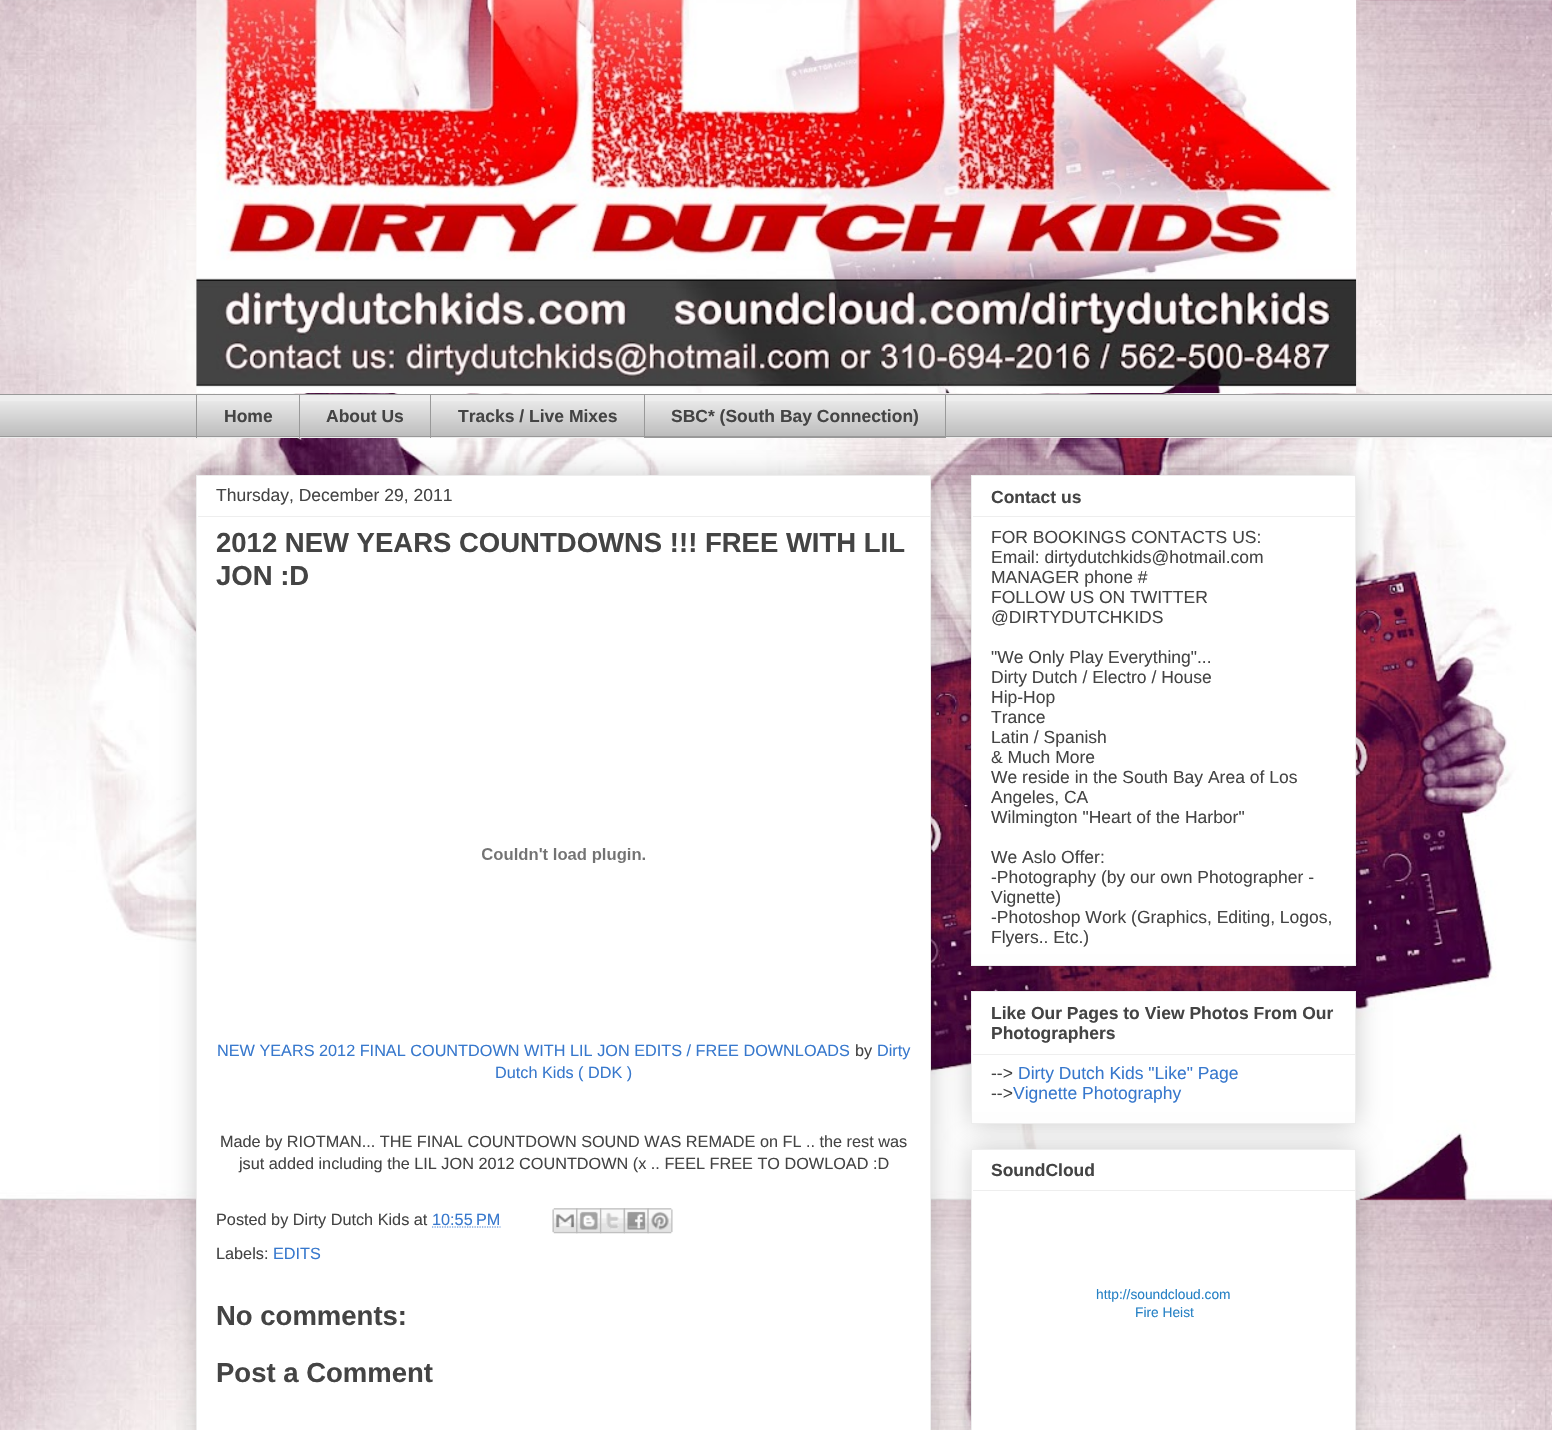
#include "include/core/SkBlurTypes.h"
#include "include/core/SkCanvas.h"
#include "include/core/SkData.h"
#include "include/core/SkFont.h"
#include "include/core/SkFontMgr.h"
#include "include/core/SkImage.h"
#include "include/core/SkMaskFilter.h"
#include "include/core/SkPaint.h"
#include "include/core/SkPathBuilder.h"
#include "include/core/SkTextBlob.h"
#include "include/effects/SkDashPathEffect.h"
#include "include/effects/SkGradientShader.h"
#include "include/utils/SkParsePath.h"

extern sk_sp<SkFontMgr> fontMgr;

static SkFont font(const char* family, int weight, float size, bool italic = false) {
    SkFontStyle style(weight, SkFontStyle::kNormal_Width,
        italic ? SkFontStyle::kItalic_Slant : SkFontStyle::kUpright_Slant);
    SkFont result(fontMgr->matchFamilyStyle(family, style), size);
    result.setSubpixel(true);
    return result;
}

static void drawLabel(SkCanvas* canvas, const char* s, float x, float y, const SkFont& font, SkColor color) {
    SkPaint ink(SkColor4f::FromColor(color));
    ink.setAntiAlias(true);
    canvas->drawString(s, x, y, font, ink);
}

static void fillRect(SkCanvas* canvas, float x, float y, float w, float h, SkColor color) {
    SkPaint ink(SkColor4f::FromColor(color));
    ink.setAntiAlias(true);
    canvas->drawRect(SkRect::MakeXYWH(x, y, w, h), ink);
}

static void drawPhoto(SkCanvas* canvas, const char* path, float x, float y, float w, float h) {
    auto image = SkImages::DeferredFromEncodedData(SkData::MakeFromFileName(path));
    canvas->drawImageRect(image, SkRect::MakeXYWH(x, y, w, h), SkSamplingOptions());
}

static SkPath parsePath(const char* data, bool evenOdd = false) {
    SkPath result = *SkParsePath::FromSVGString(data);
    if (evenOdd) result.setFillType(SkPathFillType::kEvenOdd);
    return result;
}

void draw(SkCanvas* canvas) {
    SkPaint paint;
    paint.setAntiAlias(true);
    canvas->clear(0xFFFFFFFF);
    drawPhoto(canvas, "assets/img1.png", 0, 0, 1552, 1430);
    drawPhoto(canvas, "assets/img2.png", 196, 0, 1161, 394);
    fillRect(canvas, 0, 395, 1552, 43, 0xFFEEEEEE);
    drawPhoto(canvas, "assets/img3.png", 0, 401, 1552, 35);
    fillRect(canvas, 0, 394, 1552, 1, 0xFF999999);
    fillRect(canvas, 196, 394, 1, 44, 0xFF999999);
    SkFont font1 = font("Liberation Sans", 700, 17.5f);
    drawLabel(canvas, "Home", 224, 422, font1, 0xFF444444);
    fillRect(canvas, 299, 394, 1, 44, 0xFF999999);
    drawLabel(canvas, "About Us", 326, 422, font1, 0xFF444444);
    fillRect(canvas, 430, 394, 1, 44, 0xFF999999);
    drawLabel(canvas, "Tracks / Live Mixes", 458, 422, font1, 0xFF444444);
    paint.setStroke(true);
    paint.setStrokeWidth(1);
    paint.setColor(0xFF999999);
    canvas->drawRect(SkRect::MakeXYWH(644.5f, 394.5f, 301, 43), paint);
    drawLabel(canvas, "SBC* (South Bay Connection)", 671, 422, font1, 0xFF444444);
    fillRect(canvas, 0, 436, 1552, 1, 0xFF999999);
    paint.setStroke(false);
    paint.setColor(0x33000000);
    paint.setMaskFilter(SkMaskFilter::MakeBlur(kNormal_SkBlurStyle, 12.5f));
    canvas->drawRect(SkRect::MakeXYWH(196, 475, 735, 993), paint);
    paint.setMaskFilter(nullptr);
    paint.setColor(0xFFFFFFFF);
    canvas->drawRect(SkRect::MakeXYWH(196.5f, 475.5f, 734, 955), paint);
    paint.setStroke(true);
    paint.setColor(0xFFEEEEEE);
    canvas->drawRect(SkRect::MakeXYWH(196.5f, 475.5f, 734, 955), paint);
    SkFont font2 = font("Liberation Sans", 400, 17.5f);
    drawLabel(canvas, "Thursday, December 29, 2011", 216, 501, font2, 0xFF444444);
    fillRect(canvas, 198, 516, 732, 1, 0xFFEEEEEE);
    SkFont font3 = font("Liberation Sans", 700, 27.5f);
    drawLabel(canvas, "2012 NEW YEARS COUNTDOWNS !!! FREE WITH LIL", 216, 552, font3, 0xFF444444);
    drawLabel(canvas, "JON :D", 216, 585, font3, 0xFF444444);
    drawPhoto(canvas, "assets/img4.png", 482, 848, 163, 15);
    SkFont font4 = font("Liberation Sans", 400, 16.25f);
    drawLabel(canvas, "NEW YEARS 2012 FINAL COUNTDOWN WITH LIL JON EDITS / FREE DOWNLOADS", 217, 1056, font4, 0xFF3778CD);
    drawLabel(canvas, "by", 855, 1056, font4, 0xFF444444);
    drawLabel(canvas, "Dirty", 877, 1056, font4, 0xFF3778CD);
    drawLabel(canvas, "Dutch Kids ( DDK )", 495, 1078, font4, 0xFF3778CD);
    drawLabel(canvas, "Made by RIOTMAN... THE FINAL COUNTDOWN SOUND WAS REMADE on FL .. the rest was", 220, 1147, font4, 0xFF444444);
    drawLabel(canvas, "jsut added including the LIL JON 2012 COUNTDOWN (x .. FEEL FREE TO DOWLOAD :D", 239, 1169, font4, 0xFF444444);
    drawLabel(canvas, "Posted by Dirty Dutch Kids at", 216, 1225, font4, 0xFF444444);
    drawLabel(canvas, "10:55 PM", 432, 1225, font4, 0xFF3778CD);
    paint.setStrokeWidth(1.2f);
    paint.setColor(0xFF3778CD);
    paint.setPathEffect(SkDashPathEffect::Make({{1.25f, 1.25f}}, 0));
    canvas->drawPath(parsePath("M432 1227H500.5"), paint);
    paint.setPathEffect(nullptr);
    drawPhoto(canvas, "assets/img5.png", 552, 1208, 26, 26);
    drawPhoto(canvas, "assets/img6.png", 576, 1208, 26, 26);
    drawPhoto(canvas, "assets/img7.png", 600, 1208, 25, 26);
    drawPhoto(canvas, "assets/img8.png", 623, 1208, 26, 26);
    drawPhoto(canvas, "assets/img9.png", 647, 1208, 26, 26);
    drawLabel(canvas, "Labels:", 216, 1259, font4, 0xFF444444);
    drawLabel(canvas, "EDITS", 273, 1259, font4, 0xFF3778CD);
    drawLabel(canvas, "No comments:", 216, 1325, font3, 0xFF444444);
    drawLabel(canvas, "Post a Comment", 216, 1382, font3, 0xFF444444);
    paint.setStroke(false);
    paint.setColor(0x33000000);
    paint.setMaskFilter(SkMaskFilter::MakeBlur(kNormal_SkBlurStyle, 12.5f));
    canvas->drawRect(SkRect::MakeXYWH(971, 475, 385, 491), paint);
    paint.setMaskFilter(nullptr);
    paint.setColor(0xFFFFFFFF);
    canvas->drawRect(SkRect::MakeXYWH(971.5f, 475.5f, 384, 490), paint);
    paint.setStroke(true);
    paint.setStrokeWidth(1);
    paint.setColor(0xFFEEEEEE);
    canvas->drawRect(SkRect::MakeXYWH(971.5f, 475.5f, 384, 490), paint);
    drawLabel(canvas, "Contact us", 991, 503, font1, 0xFF444444);
    fillRect(canvas, 973, 516, 382, 1, 0xFFEEEEEE);
    drawLabel(canvas, "FOR BOOKINGS CONTACTS US:", 991, 543, font2, 0xFF444444);
    drawLabel(canvas, "Email: dirtydutchkids@hotmail.com", 991, 563, font2, 0xFF444444);
    drawLabel(canvas, "MANAGER phone #", 991, 583, font2, 0xFF444444);
    drawLabel(canvas, "FOLLOW US ON TWITTER", 991, 603, font2, 0xFF444444);
    drawLabel(canvas, "@DIRTYDUTCHKIDS", 991, 623, font2, 0xFF444444);
    drawLabel(canvas, "\"We Only Play Everything\"...", 991, 663, font2, 0xFF444444);
    drawLabel(canvas, "Dirty Dutch / Electro / House", 991, 683, font2, 0xFF444444);
    drawLabel(canvas, "Hip-Hop", 991, 703, font2, 0xFF444444);
    drawLabel(canvas, "Trance", 991, 723, font2, 0xFF444444);
    drawLabel(canvas, "Latin / Spanish", 991, 743, font2, 0xFF444444);
    drawLabel(canvas, "& Much More", 991, 763, font2, 0xFF444444);
    drawLabel(canvas, "We reside in the South Bay Area of Los", 991, 783, font2, 0xFF444444);
    drawLabel(canvas, "Angeles, CA", 991, 803, font2, 0xFF444444);
    drawLabel(canvas, "Wilmington \"Heart of the Harbor\"", 991, 823, font2, 0xFF444444);
    drawLabel(canvas, "We Aslo Offer:", 991, 863, font2, 0xFF444444);
    drawLabel(canvas, "-Photography (by our own Photographer -", 991, 883, font2, 0xFF444444);
    drawLabel(canvas, "Vignette)", 991, 903, font2, 0xFF444444);
    drawLabel(canvas, "-Photoshop Work (Graphics, Editing, Logos,", 991, 923, font2, 0xFF444444);
    drawLabel(canvas, "Flyers.. Etc.)", 991, 943, font2, 0xFF444444);
    paint.setStroke(false);
    paint.setColor(0x33000000);
    paint.setMaskFilter(SkMaskFilter::MakeBlur(kNormal_SkBlurStyle, 12.5f));
    canvas->drawRect(SkRect::MakeXYWH(971, 991, 385, 133), paint);
    paint.setMaskFilter(nullptr);
    paint.setColor(0xFFFFFFFF);
    canvas->drawRect(SkRect::MakeXYWH(971.5f, 991.5f, 384, 132), paint);
    paint.setStroke(true);
    paint.setColor(0xFFEEEEEE);
    canvas->drawRect(SkRect::MakeXYWH(971.5f, 991.5f, 384, 132), paint);
    drawLabel(canvas, "Like Our Pages to View Photos From Our", 991, 1019, font1, 0xFF444444);
    drawLabel(canvas, "Photographers", 991, 1039, font1, 0xFF444444);
    fillRect(canvas, 973, 1054, 382, 1, 0xFFEEEEEE);
    drawLabel(canvas, "-->", 991, 1079, font2, 0xFF444444);
    drawLabel(canvas, "Dirty Dutch Kids \"Like\" Page", 1018, 1079, font2, 0xFF3778CD);
    drawLabel(canvas, "-->", 991, 1099, font2, 0xFF444444);
    drawLabel(canvas, "Vignette Photography", 1013, 1099, font2, 0xFF3778CD);
    paint.setStroke(false);
    paint.setColor(0x33000000);
    paint.setMaskFilter(SkMaskFilter::MakeBlur(kNormal_SkBlurStyle, 12.5f));
    canvas->drawRect(SkRect::MakeXYWH(971, 1149, 385, 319), paint);
    paint.setMaskFilter(nullptr);
    paint.setColor(0xFFFFFFFF);
    canvas->drawRect(SkRect::MakeXYWH(971.5f, 1149.5f, 384, 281), paint);
    paint.setStroke(true);
    paint.setColor(0xFFEEEEEE);
    canvas->drawRect(SkRect::MakeXYWH(971.5f, 1149.5f, 384, 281), paint);
    drawLabel(canvas, "SoundCloud", 991, 1176, font1, 0xFF444444);
    fillRect(canvas, 973, 1190, 382, 1, 0xFFEEEEEE);
    SkFont font5 = font("Liberation Sans", 400, 13.75f);
    drawLabel(canvas, "http://soundcloud.com", 1096, 1299, font5, 0xFF2681C5);
    drawLabel(canvas, "Fire Heist", 1135, 1317, font5, 0xFF2681C5);
}
